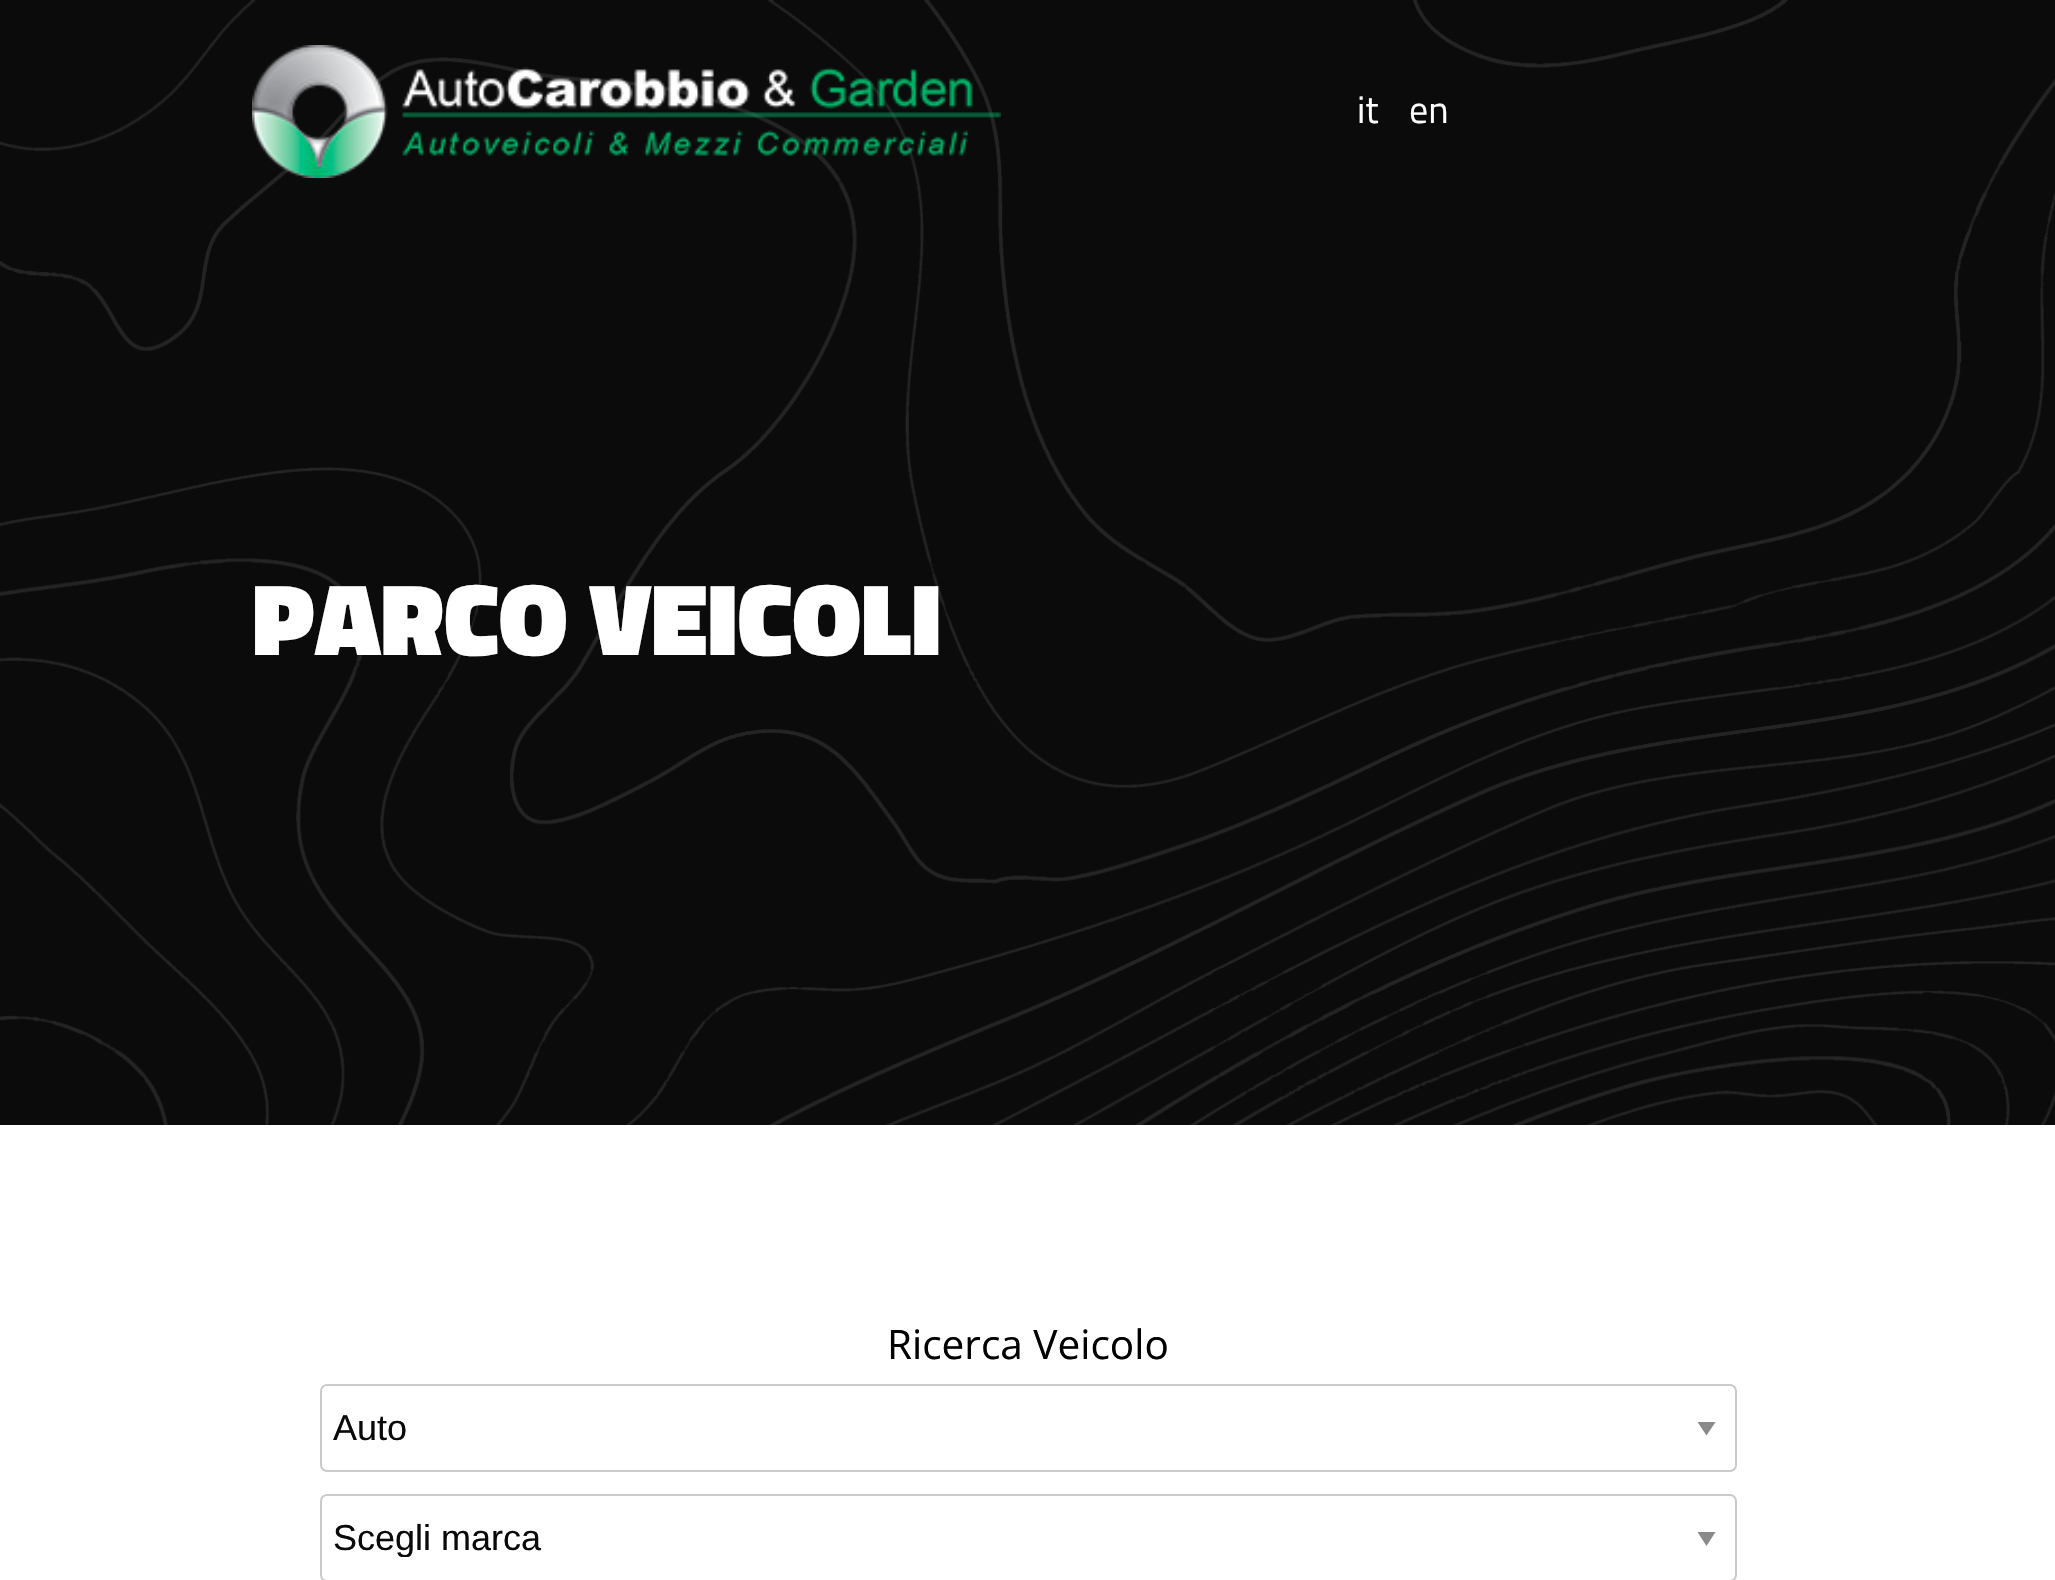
#include "include/core/SkBlurTypes.h"
#include "include/core/SkCanvas.h"
#include "include/core/SkData.h"
#include "include/core/SkFont.h"
#include "include/core/SkFontMgr.h"
#include "include/core/SkImage.h"
#include "include/core/SkMaskFilter.h"
#include "include/core/SkPaint.h"
#include "include/core/SkPathBuilder.h"
#include "include/core/SkTextBlob.h"
#include "include/effects/SkDashPathEffect.h"
#include "include/effects/SkGradientShader.h"
#include "include/utils/SkParsePath.h"

extern sk_sp<SkFontMgr> fontMgr;

static SkFont font(const char* family, int weight, float size, bool italic = false) {
    SkFontStyle style(weight, SkFontStyle::kNormal_Width,
        italic ? SkFontStyle::kItalic_Slant : SkFontStyle::kUpright_Slant);
    SkFont result(fontMgr->matchFamilyStyle(family, style), size);
    result.setSubpixel(true);
    return result;
}

static void drawLabel(SkCanvas* canvas, const char* s, float x, float y, const SkFont& font, SkColor color) {
    SkPaint ink(SkColor4f::FromColor(color));
    ink.setAntiAlias(true);
    canvas->drawString(s, x, y, font, ink);
}

static void fillRect(SkCanvas* canvas, float x, float y, float w, float h, SkColor color) {
    SkPaint ink(SkColor4f::FromColor(color));
    ink.setAntiAlias(true);
    canvas->drawRect(SkRect::MakeXYWH(x, y, w, h), ink);
}

static void drawPhoto(SkCanvas* canvas, const char* path, float x, float y, float w, float h) {
    auto image = SkImages::DeferredFromEncodedData(SkData::MakeFromFileName(path));
    canvas->drawImageRect(image, SkRect::MakeXYWH(x, y, w, h), SkSamplingOptions());
}

static SkPath parsePath(const char* data, bool evenOdd = false) {
    SkPath result = *SkParsePath::FromSVGString(data);
    if (evenOdd) result.setFillType(SkPathFillType::kEvenOdd);
    return result;
}

void draw(SkCanvas* canvas) {
    SkPaint paint;
    paint.setAntiAlias(true);
    canvas->clear(0xFFFFFFFF);
    fillRect(canvas, 0, 0, 2055, 1125, 0xFF0B0B0B);
    drawPhoto(canvas, "assets/img2.png", 0, 0, 2055, 1125);
    drawPhoto(canvas, "assets/img1.png", 252, 45, 749, 133);
    SkFont font1 = font("Titillium Web", 400, 38);
    drawLabel(canvas, "it", 1357, 123, font1, 0xFFFFFFFF);
    drawLabel(canvas, "en", 1409, 123, font1, 0xFFFFFFFF);
    SkFont font2 = font("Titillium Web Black", 900, 102.75f);
    drawLabel(canvas, "PARCO VEICOLI", 252, 655, font2, 0xFFFFFFFF);
    SkFont font3 = font("Open Sans", 400, 40.5f);
    drawLabel(canvas, "Ricerca Veicolo", 887, 1359, font3, 0xFF000000);
    paint.setColor(0xFF8A8A8A);
    canvas->drawPath(parsePath("M1697.5 1422H1715.5L1706.5 1435.5Z"), paint);
    paint.setStroke(true);
    paint.setStrokeWidth(2);
    paint.setColor(0xFFCACACA);
    canvas->drawRoundRect(SkRect::MakeXYWH(321, 1385, 1415, 86), 6, 6, paint);
    SkFont font4 = font("Liberation Sans", 400, 36);
    drawLabel(canvas, "Auto", 333, 1440, font4, 0xFF0A0A0A);
    paint.setStroke(false);
    paint.setColor(0xFF8A8A8A);
    canvas->drawPath(parsePath("M1697.5 1532H1715.5L1706.5 1546Z"), paint);
    paint.setStroke(true);
    paint.setColor(0xFFCACACA);
    canvas->drawRoundRect(SkRect::MakeXYWH(321, 1495, 1415, 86), 6, 6, paint);
    canvas->save();
    canvas->clipRect(SkRect::MakeXYWH(333, 1519, 1348, 38));
    drawLabel(canvas, "Scegli marca", 333, 1550, font4, 0xFF0A0A0A);
    canvas->restore();
}
